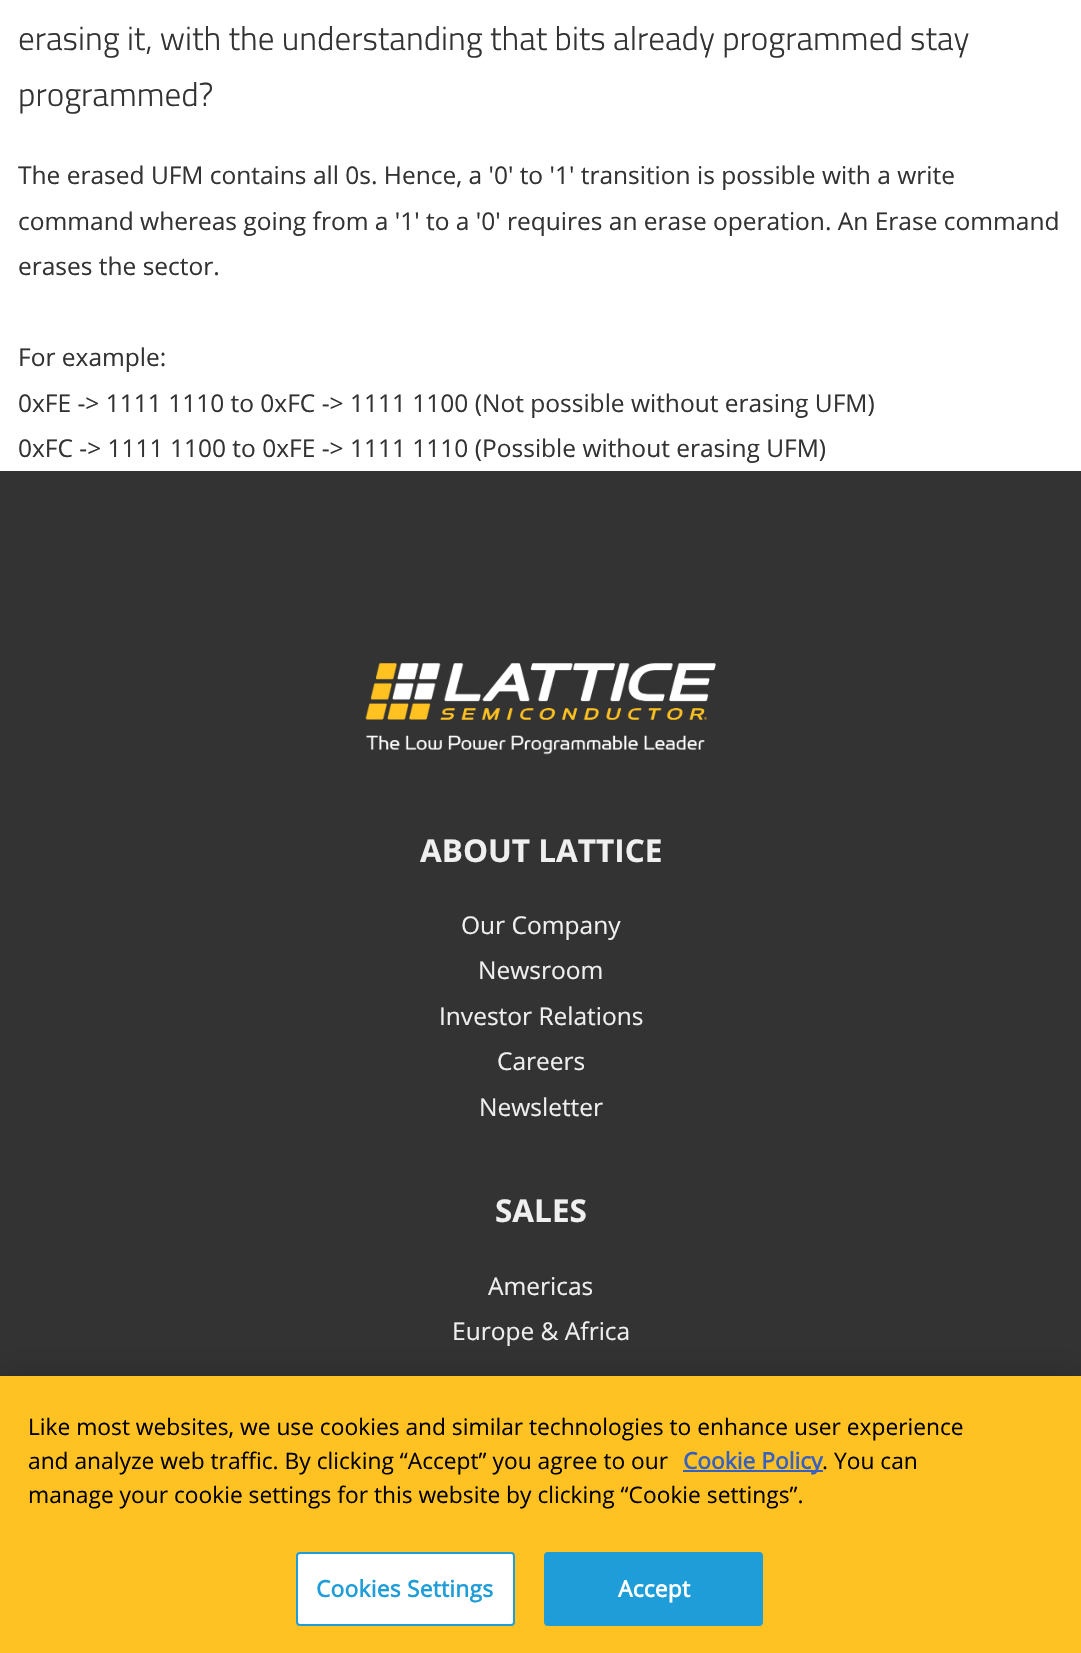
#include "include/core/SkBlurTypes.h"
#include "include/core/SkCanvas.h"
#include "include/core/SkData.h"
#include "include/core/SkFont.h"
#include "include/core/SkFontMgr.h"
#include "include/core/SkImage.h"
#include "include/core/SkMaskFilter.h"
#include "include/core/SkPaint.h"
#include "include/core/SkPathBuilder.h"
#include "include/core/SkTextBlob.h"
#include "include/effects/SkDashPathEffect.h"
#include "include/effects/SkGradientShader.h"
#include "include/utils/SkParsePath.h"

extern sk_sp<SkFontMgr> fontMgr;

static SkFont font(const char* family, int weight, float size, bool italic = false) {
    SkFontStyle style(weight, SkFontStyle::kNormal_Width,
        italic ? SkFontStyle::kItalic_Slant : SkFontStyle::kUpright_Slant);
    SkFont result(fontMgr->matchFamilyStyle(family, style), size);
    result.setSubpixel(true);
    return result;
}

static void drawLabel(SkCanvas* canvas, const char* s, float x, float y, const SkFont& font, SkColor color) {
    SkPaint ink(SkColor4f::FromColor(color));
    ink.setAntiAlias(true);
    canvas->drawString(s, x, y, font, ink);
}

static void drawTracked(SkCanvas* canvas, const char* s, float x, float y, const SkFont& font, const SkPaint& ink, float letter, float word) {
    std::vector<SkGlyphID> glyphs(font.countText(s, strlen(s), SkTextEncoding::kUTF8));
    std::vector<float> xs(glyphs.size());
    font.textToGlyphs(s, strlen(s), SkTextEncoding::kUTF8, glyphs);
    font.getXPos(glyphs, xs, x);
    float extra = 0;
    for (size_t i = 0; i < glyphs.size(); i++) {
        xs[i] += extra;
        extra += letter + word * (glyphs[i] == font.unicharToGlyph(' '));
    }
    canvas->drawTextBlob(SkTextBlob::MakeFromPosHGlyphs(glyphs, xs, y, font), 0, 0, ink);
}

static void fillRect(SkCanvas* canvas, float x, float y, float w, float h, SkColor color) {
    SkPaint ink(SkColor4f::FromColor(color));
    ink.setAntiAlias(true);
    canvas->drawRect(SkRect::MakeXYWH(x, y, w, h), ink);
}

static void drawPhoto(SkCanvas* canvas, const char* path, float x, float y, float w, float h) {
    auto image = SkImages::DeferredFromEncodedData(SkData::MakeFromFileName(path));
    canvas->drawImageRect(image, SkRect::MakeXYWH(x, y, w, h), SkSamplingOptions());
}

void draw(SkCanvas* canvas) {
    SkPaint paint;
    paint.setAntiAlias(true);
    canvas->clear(0xFFFFFFFF);
    SkFont font1 = font("Titillium Web", 300, 33.25f);
    drawLabel(canvas, "erasing it, with the understanding that bits already programmed stay", 18, 50, font1, 0xFF333333);
    drawLabel(canvas, "programmed?", 18, 106, font1, 0xFF333333);
    SkFont font2 = font("Open Sans", 400, 24.5f);
    drawLabel(canvas, "The erased UFM contains all 0s. Hence, a '0' to '1' transition is possible with a write", 18, 184, font2, 0xFF333333);
    drawLabel(canvas, "command whereas going from a '1' to a '0' requires an erase operation. An Erase command", 18, 230, font2, 0xFF333333);
    drawLabel(canvas, "erases the sector.", 18, 275, font2, 0xFF333333);
    drawLabel(canvas, "For example:", 18, 366, font2, 0xFF333333);
    drawLabel(canvas, "0xFE -> 1111 1110 to 0xFC -> 1111 1100 (Not possible without erasing UFM)", 18, 412, font2, 0xFF333333);
    drawLabel(canvas, "0xFC -> 1111 1100 to 0xFE -> 1111 1110 (Possible without erasing UFM)", 18, 457, font2, 0xFF333333);
    fillRect(canvas, 0, 471, 1081, 905, 0xFF333333);
    drawPhoto(canvas, "assets/img1.png", 365, 663, 351, 92);
    SkFont font3 = font("Open Sans", 700, 31.5f);
    drawLabel(canvas, "ABOUT LATTICE", 420, 862, font3, 0xFFEFEFEF);
    drawLabel(canvas, "Our Company", 461, 934, font2, 0xFFEFEFEF);
    drawLabel(canvas, "Newsroom", 478, 979, font2, 0xFFEFEFEF);
    drawLabel(canvas, "Investor Relations", 439, 1025, font2, 0xFFEFEFEF);
    drawLabel(canvas, "Careers", 497, 1070, font2, 0xFFEFEFEF);
    drawLabel(canvas, "Newsletter", 479, 1116, font2, 0xFFEFEFEF);
    drawLabel(canvas, "SALES", 495, 1222, font3, 0xFFEFEFEF);
    drawLabel(canvas, "Americas", 488, 1295, font2, 0xFFEFEFEF);
    drawLabel(canvas, "Europe & Africa", 452, 1340, font2, 0xFFEFEFEF);
    paint.setColor(0x33000000);
    paint.setMaskFilter(SkMaskFilter::MakeBlur(kNormal_SkBlurStyle, 16));
    canvas->drawRect(SkRect::MakeXYWH(0, 1376, 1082, 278), paint);
    paint.setMaskFilter(nullptr);
    fillRect(canvas, 0, 1376, 1081, 277, 0xFFFFC222);
    SkFont font4 = font("Open Sans", 400, 22.75f);
    drawLabel(canvas, "Like most websites, we use cookies and similar technologies to enhance user experience", 28, 1435, font4, 0xFF000000);
    drawLabel(canvas, "and analyze web traffic. By clicking “Accept” you agree to our", 28, 1469, font4, 0xFF000000);
    fillRect(canvas, 683, 1470, 140, 2, 0xFF3860BE);
    SkFont font5 = font("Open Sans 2", 700, 22.75f);
    drawLabel(canvas, "Cookie Policy", 683, 1469, font5, 0xFF3860BE);
    drawLabel(canvas, ". You can", 822, 1469, font4, 0xFF000000);
    drawLabel(canvas, "manage your cookie settings for this website by clicking “Cookie settings”.", 28, 1503, font4, 0xFF000000);
    paint.setColor(0xFFFFFFFF);
    canvas->drawRoundRect(SkRect::MakeXYWH(297, 1553, 217, 72), 3, 3, paint);
    paint.setStroke(true);
    paint.setStrokeWidth(2);
    paint.setColor(0xFF1F9DD8);
    canvas->drawRoundRect(SkRect::MakeXYWH(297, 1553, 217, 72), 3, 3, paint);
    paint.setStroke(false);
    drawTracked(canvas, "Cookies Settings", 316, 1597, font5, paint, 0.25f, 0);
    canvas->drawRoundRect(SkRect::MakeXYWH(545, 1553, 217, 72), 3, 3, paint);
    paint.setStroke(true);
    canvas->drawRoundRect(SkRect::MakeXYWH(545, 1553, 217, 72), 3, 3, paint);
    paint.setStroke(false);
    paint.setColor(0xFFFFFFFF);
    drawTracked(canvas, "Accept", 618, 1597, font5, paint, 0.25f, 0);
}
